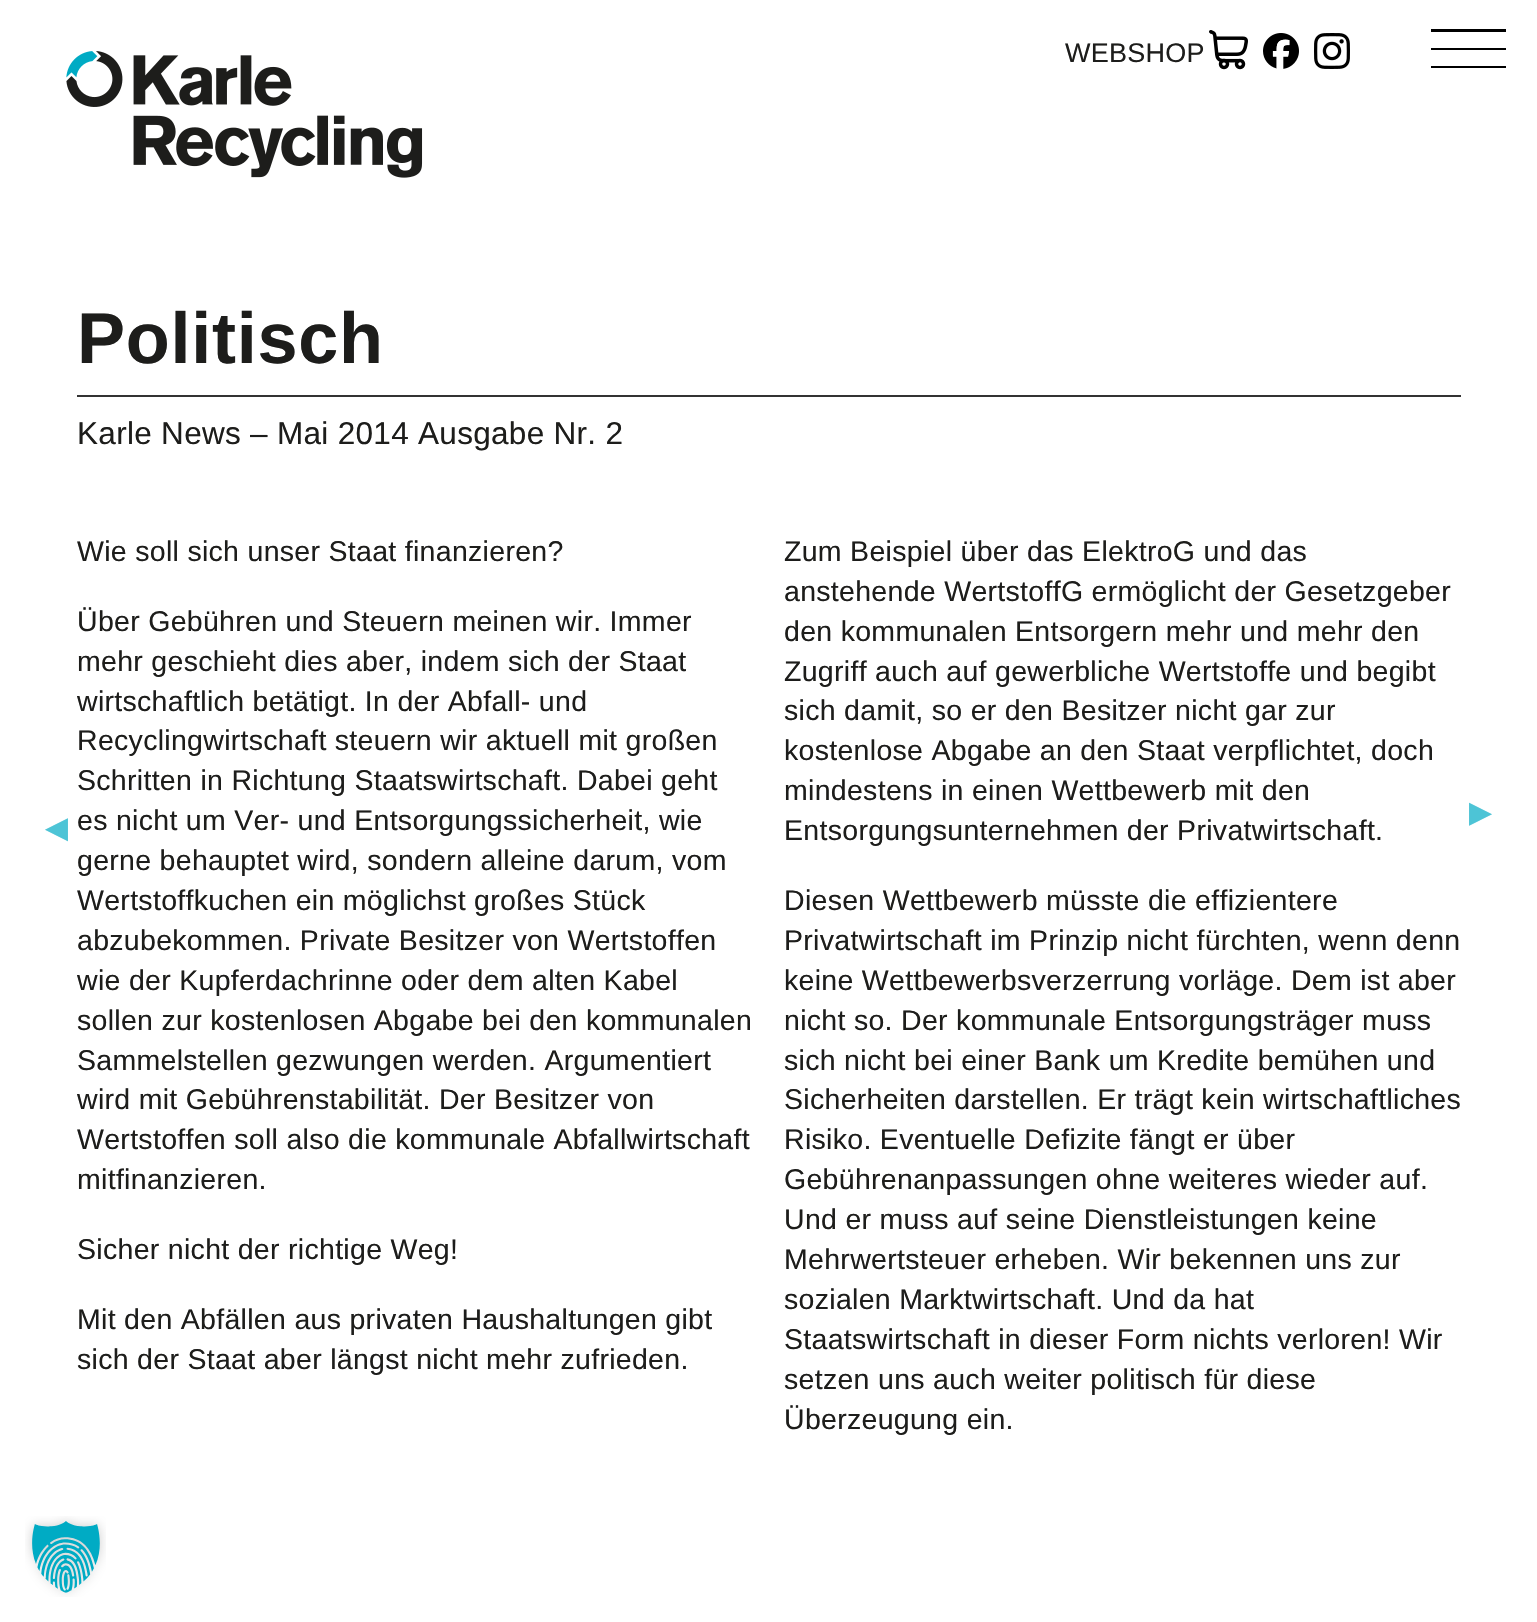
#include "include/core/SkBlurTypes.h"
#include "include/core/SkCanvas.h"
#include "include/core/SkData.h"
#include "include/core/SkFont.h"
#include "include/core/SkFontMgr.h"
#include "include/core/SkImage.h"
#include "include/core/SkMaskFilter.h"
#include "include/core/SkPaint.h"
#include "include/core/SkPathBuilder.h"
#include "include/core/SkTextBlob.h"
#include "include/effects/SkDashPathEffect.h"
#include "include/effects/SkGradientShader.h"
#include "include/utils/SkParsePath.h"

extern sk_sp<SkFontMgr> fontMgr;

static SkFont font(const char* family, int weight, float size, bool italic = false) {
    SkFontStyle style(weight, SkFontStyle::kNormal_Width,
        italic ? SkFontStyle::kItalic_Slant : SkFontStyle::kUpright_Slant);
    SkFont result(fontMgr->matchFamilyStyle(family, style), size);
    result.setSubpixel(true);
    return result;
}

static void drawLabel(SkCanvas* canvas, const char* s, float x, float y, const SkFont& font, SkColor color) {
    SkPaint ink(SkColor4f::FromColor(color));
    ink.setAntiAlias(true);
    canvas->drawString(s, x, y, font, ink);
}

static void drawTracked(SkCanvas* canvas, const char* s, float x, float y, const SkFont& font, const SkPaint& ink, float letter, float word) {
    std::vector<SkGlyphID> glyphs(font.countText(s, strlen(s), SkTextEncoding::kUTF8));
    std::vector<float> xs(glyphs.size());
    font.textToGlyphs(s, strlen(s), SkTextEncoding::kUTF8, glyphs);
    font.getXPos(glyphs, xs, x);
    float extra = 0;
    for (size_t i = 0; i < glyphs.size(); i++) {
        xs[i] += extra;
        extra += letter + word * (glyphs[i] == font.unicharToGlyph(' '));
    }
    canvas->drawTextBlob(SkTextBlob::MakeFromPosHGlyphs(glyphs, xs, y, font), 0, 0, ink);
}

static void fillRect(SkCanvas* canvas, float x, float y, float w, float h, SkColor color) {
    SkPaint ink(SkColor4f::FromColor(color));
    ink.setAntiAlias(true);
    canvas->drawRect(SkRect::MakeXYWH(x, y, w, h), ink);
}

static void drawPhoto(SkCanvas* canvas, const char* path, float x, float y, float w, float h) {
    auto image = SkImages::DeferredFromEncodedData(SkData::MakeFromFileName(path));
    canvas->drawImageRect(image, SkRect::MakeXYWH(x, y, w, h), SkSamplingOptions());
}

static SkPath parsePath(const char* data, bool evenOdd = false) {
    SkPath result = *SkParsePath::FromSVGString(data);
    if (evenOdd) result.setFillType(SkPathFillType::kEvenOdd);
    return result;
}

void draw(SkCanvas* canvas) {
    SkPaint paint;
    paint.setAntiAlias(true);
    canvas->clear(0xFFFFFFFF);
    drawPhoto(canvas, "assets/img1.png", 66, 51, 357, 127);
    SkFont font1 = font("Liberation Sans", 400, 27);
    paint.setColor(0xFF1D1D1B);
    drawTracked(canvas, "WEBSHOP", 1065, 62, font1, paint, 0.25f, 0);
    drawPhoto(canvas, "assets/img2.png", 1209, 30, 39, 40);
    drawPhoto(canvas, "assets/img3.png", 1263, 33, 36, 36);
    drawPhoto(canvas, "assets/img4.png", 1314, 33, 36, 36);
    paint.setColor(0xFF000000);
    canvas->drawPath(parsePath("M1431 50V48H1506V50ZM1431 32V29H1506V32ZM1431 68V66H1506V68Z"), paint);
    SkFont font2 = font("Liberation Sans", 700, 72);
    paint.setColor(0xFF1D1D1B);
    drawTracked(canvas, "Politisch", 77, 363, font2, paint, 0.75f, 0);
    fillRect(canvas, 77, 395, 1384, 2, 0xFF333333);
    SkFont font3 = font("Liberation Sans", 400, 31.5f);
    drawTracked(canvas, "Karle News – Mai 2014 Ausgabe Nr. 2", 77, 444, font3, paint, 0.3f, 0);
    SkFont font4 = font("Liberation Sans", 400, 28.5f);
    drawTracked(canvas, "Wie soll sich unser Staat finanzieren?", 77, 561, font4, paint, 0.3f, 0);
    drawTracked(canvas, "Über Gebühren und Steuern meinen wir. Immer", 77, 631, font4, paint, 0.3f, 0);
    drawTracked(canvas, "mehr geschieht dies aber, indem sich der Staat", 77, 671, font4, paint, 0.3f, 0);
    drawTracked(canvas, "wirtschaftlich betätigt. In der Abfall- und", 77, 711, font4, paint, 0.3f, 0);
    drawTracked(canvas, "Recyclingwirtschaft steuern wir aktuell mit großen", 77, 750, font4, paint, 0.3f, 0);
    drawTracked(canvas, "Schritten in Richtung Staatswirtschaft. Dabei geht", 77, 790, font4, paint, 0.3f, 0);
    drawTracked(canvas, "es nicht um Ver- und Entsorgungssicherheit, wie", 77, 830, font4, paint, 0.3f, 0);
    drawTracked(canvas, "gerne behauptet wird, sondern alleine darum, vom", 77, 870, font4, paint, 0.3f, 0);
    drawTracked(canvas, "Wertstoffkuchen ein möglichst großes Stück", 77, 910, font4, paint, 0.3f, 0);
    drawTracked(canvas, "abzubekommen. Private Besitzer von Wertstoffen", 77, 950, font4, paint, 0.3f, 0);
    drawTracked(canvas, "wie der Kupferdachrinne oder dem alten Kabel", 77, 990, font4, paint, 0.3f, 0);
    drawTracked(canvas, "sollen zur kostenlosen Abgabe bei den kommunalen", 77, 1030, font4, paint, 0.3f, 0);
    drawTracked(canvas, "Sammelstellen gezwungen werden. Argumentiert", 77, 1070, font4, paint, 0.3f, 0);
    drawTracked(canvas, "wird mit Gebührenstabilität. Der Besitzer von", 77, 1109, font4, paint, 0.3f, 0);
    drawTracked(canvas, "Wertstoffen soll also die kommunale Abfallwirtschaft", 77, 1149, font4, paint, 0.3f, 0);
    drawTracked(canvas, "mitfinanzieren.", 77, 1189, font4, paint, 0.3f, 0);
    drawTracked(canvas, "Sicher nicht der richtige Weg!", 77, 1259, font4, paint, 0.3f, 0);
    drawTracked(canvas, "Mit den Abfällen aus privaten Haushaltungen gibt", 77, 1329, font4, paint, 0.3f, 0);
    drawTracked(canvas, "sich der Staat aber längst nicht mehr zufrieden.", 77, 1369, font4, paint, 0.3f, 0);
    drawTracked(canvas, "Zum Beispiel über das ElektroG und das", 784, 561, font4, paint, 0.3f, 0);
    drawTracked(canvas, "anstehende WertstoffG ermöglicht der Gesetzgeber", 784, 601, font4, paint, 0.3f, 0);
    drawTracked(canvas, "den kommunalen Entsorgern mehr und mehr den", 784, 641, font4, paint, 0.3f, 0);
    drawTracked(canvas, "Zugriff auch auf gewerbliche Wertstoffe und begibt", 784, 681, font4, paint, 0.3f, 0);
    drawTracked(canvas, "sich damit, so er den Besitzer nicht gar zur", 784, 720, font4, paint, 0.3f, 0);
    drawTracked(canvas, "kostenlose Abgabe an den Staat verpflichtet, doch", 784, 760, font4, paint, 0.3f, 0);
    drawTracked(canvas, "mindestens in einen Wettbewerb mit den", 784, 800, font4, paint, 0.3f, 0);
    drawTracked(canvas, "Entsorgungsunternehmen der Privatwirtschaft.", 784, 840, font4, paint, 0.3f, 0);
    drawTracked(canvas, "Diesen Wettbewerb müsste die effizientere", 784, 910, font4, paint, 0.3f, 0);
    drawTracked(canvas, "Privatwirtschaft im Prinzip nicht fürchten, wenn denn", 784, 950, font4, paint, 0.3f, 0);
    drawTracked(canvas, "keine Wettbewerbsverzerrung vorläge. Dem ist aber", 784, 990, font4, paint, 0.3f, 0);
    drawTracked(canvas, "nicht so. Der kommunale Entsorgungsträger muss", 784, 1030, font4, paint, 0.3f, 0);
    drawTracked(canvas, "sich nicht bei einer Bank um Kredite bemühen und", 784, 1070, font4, paint, 0.3f, 0);
    drawTracked(canvas, "Sicherheiten darstellen. Er trägt kein wirtschaftliches", 784, 1109, font4, paint, 0.3f, 0);
    drawTracked(canvas, "Risiko. Eventuelle Defizite fängt er über", 784, 1149, font4, paint, 0.3f, 0);
    drawTracked(canvas, "Gebührenanpassungen ohne weiteres wieder auf.", 784, 1189, font4, paint, 0.3f, 0);
    drawTracked(canvas, "Und er muss auf seine Dienstleistungen keine", 784, 1229, font4, paint, 0.3f, 0);
    drawTracked(canvas, "Mehrwertsteuer erheben. Wir bekennen uns zur", 784, 1269, font4, paint, 0.3f, 0);
    drawTracked(canvas, "sozialen Marktwirtschaft. Und da hat", 784, 1309, font4, paint, 0.3f, 0);
    drawTracked(canvas, "Staatswirtschaft in dieser Form nichts verloren! Wir", 784, 1349, font4, paint, 0.3f, 0);
    drawTracked(canvas, "setzen uns auch weiter politisch für diese", 784, 1389, font4, paint, 0.3f, 0);
    drawTracked(canvas, "Überzeugung ein.", 784, 1429, font4, paint, 0.3f, 0);
    SkFont font5 = font("DejaVu Sans", 400, 30);
    drawLabel(canvas, "▶", 1469, 822, font5, 0xFF4DC4D6);
    canvas->save();
    canvas->rotate(180, 68, 822);
    drawLabel(canvas, "▶", 68, 822, font5, 0xFF4DC4D6);
    canvas->restore();
    drawPhoto(canvas, "assets/img5.png", 25, 1516, 81, 81);
}
